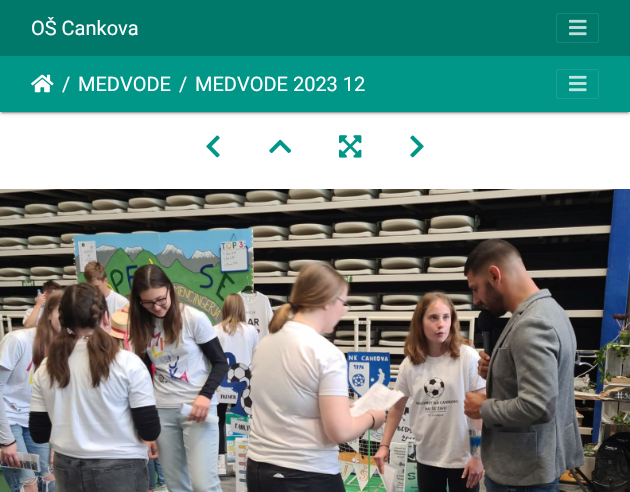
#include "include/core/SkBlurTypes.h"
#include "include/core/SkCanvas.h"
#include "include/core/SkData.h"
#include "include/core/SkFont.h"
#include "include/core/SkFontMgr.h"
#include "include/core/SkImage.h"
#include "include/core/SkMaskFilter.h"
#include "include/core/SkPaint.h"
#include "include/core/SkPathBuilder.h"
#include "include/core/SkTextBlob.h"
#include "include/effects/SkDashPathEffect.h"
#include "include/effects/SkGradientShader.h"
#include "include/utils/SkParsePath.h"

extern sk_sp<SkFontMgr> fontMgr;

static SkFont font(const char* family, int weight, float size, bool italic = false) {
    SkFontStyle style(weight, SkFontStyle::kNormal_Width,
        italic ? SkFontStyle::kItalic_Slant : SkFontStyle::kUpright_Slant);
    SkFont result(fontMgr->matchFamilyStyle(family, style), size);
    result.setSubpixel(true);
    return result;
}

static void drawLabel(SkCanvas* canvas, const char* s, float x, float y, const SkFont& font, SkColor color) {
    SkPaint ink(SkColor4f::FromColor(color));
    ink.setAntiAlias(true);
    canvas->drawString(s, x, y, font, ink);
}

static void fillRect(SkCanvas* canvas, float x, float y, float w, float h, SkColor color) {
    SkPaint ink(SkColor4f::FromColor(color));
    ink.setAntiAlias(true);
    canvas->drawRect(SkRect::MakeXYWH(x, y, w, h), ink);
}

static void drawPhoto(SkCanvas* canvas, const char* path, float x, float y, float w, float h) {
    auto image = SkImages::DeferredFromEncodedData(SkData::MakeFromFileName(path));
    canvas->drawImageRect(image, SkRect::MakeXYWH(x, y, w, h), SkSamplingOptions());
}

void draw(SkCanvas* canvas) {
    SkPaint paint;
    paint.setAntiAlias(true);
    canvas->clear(0xFFFFFFFF);
    paint.setColor(0x1F000000);
    paint.setMaskFilter(SkMaskFilter::MakeBlur(kNormal_SkBlurStyle, 2.5f));
    canvas->drawRect(SkRect::MakeXYWH(0, 57, 630, 56), paint);
    paint.setMaskFilter(nullptr);
    paint.setColor(0x24000000);
    paint.setMaskFilter(SkMaskFilter::MakeBlur(kNormal_SkBlurStyle, 1));
    canvas->drawRect(SkRect::MakeXYWH(0, 58, 630, 56), paint);
    paint.setMaskFilter(nullptr);
    fillRect(canvas, 0, 0, 630, 56, 0xFF00796B);
    SkFont font1 = font("Roboto", 400, 20);
    drawLabel(canvas, "OŠ Cankova", 31, 35, font1, 0xFFFFFFFF);
    paint.setStroke(true);
    paint.setStrokeWidth(1);
    paint.setColor(0xFF1A867A);
    canvas->drawRoundRect(SkRect::MakeXYWH(556.5f, 13.5f, 42, 29), 1.5f, 1.5f, paint);
    drawPhoto(canvas, "assets/img1.png", 569, 19, 18, 17);
    paint.setStroke(false);
    paint.setColor(0x33000000);
    paint.setMaskFilter(SkMaskFilter::MakeBlur(kNormal_SkBlurStyle, 0.5f));
    canvas->drawRect(SkRect::MakeXYWH(2, 61, 626, 52), paint);
    paint.setMaskFilter(nullptr);
    fillRect(canvas, 0, 56, 630, 56, 0xFF009688);
    drawPhoto(canvas, "assets/img2.png", 31, 74, 23, 19);
    drawLabel(canvas, "/", 62, 91, font1, 0xFFFFFFFF);
    drawLabel(canvas, "MEDVODE", 78, 91, font1, 0xFFFFFFFF);
    drawLabel(canvas, "/", 179, 91, font1, 0xFFFFFFFF);
    drawLabel(canvas, "MEDVODE 2023 12", 195, 91, font1, 0xFFFFFFFF);
    paint.setStroke(true);
    paint.setColor(0xFF1AA194);
    canvas->drawRoundRect(SkRect::MakeXYWH(556.5f, 69.5f, 42, 29), 1.5f, 1.5f, paint);
    drawPhoto(canvas, "assets/img3.png", 569, 75, 18, 17);
    drawPhoto(canvas, "assets/img4.png", 206, 135, 14, 23);
    drawPhoto(canvas, "assets/img5.png", 269, 139, 23, 14);
    drawPhoto(canvas, "assets/img6.png", 339, 135, 23, 23);
    drawPhoto(canvas, "assets/img7.png", 410, 135, 14, 23);
    drawPhoto(canvas, "assets/img8.png", 0, 189, 630, 303);
}
